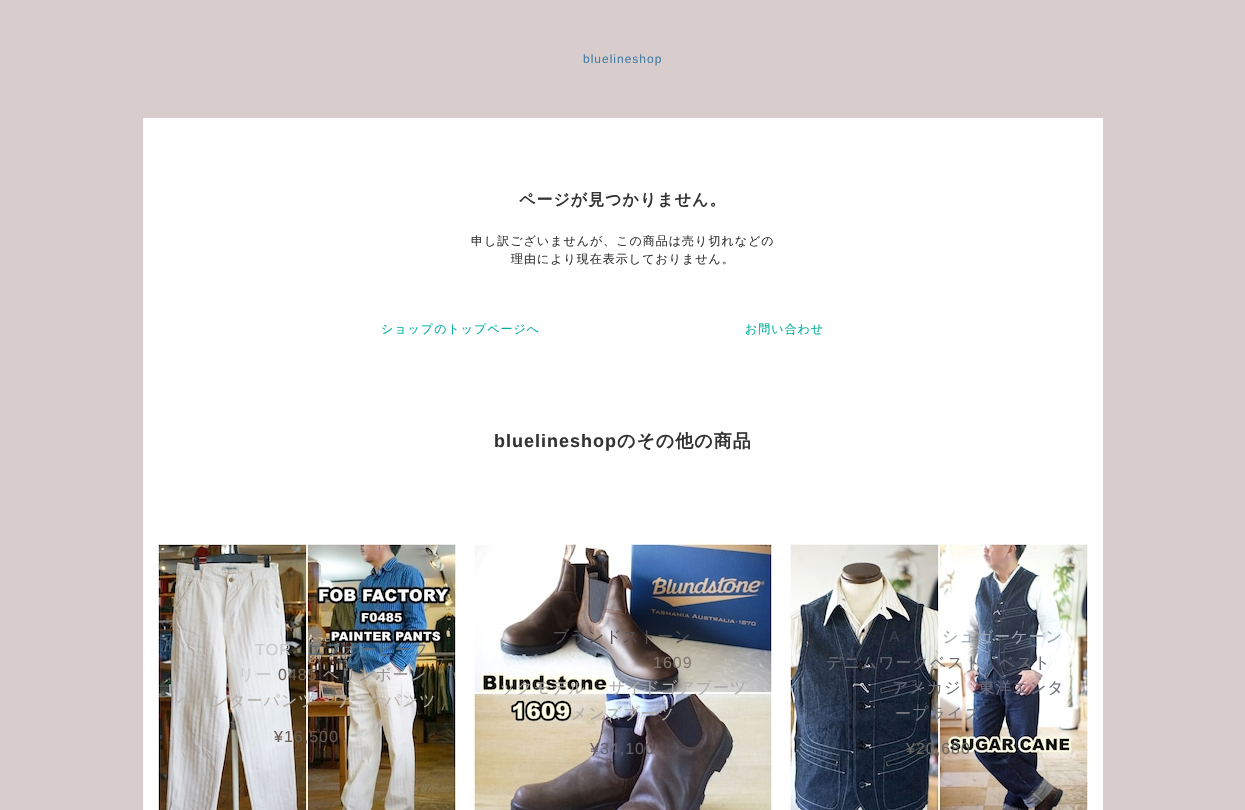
#include "include/core/SkBlurTypes.h"
#include "include/core/SkCanvas.h"
#include "include/core/SkData.h"
#include "include/core/SkFont.h"
#include "include/core/SkFontMgr.h"
#include "include/core/SkImage.h"
#include "include/core/SkMaskFilter.h"
#include "include/core/SkPaint.h"
#include "include/core/SkPathBuilder.h"
#include "include/core/SkTextBlob.h"
#include "include/effects/SkDashPathEffect.h"
#include "include/effects/SkGradientShader.h"
#include "include/utils/SkParsePath.h"

extern sk_sp<SkFontMgr> fontMgr;

static SkFont font(const char* family, int weight, float size, bool italic = false) {
    SkFontStyle style(weight, SkFontStyle::kNormal_Width,
        italic ? SkFontStyle::kItalic_Slant : SkFontStyle::kUpright_Slant);
    SkFont result(fontMgr->matchFamilyStyle(family, style), size);
    result.setSubpixel(true);
    return result;
}

static void drawTracked(SkCanvas* canvas, const char* s, float x, float y, const SkFont& font, const SkPaint& ink, float letter, float word) {
    std::vector<SkGlyphID> glyphs(font.countText(s, strlen(s), SkTextEncoding::kUTF8));
    std::vector<float> xs(glyphs.size());
    font.textToGlyphs(s, strlen(s), SkTextEncoding::kUTF8, glyphs);
    font.getXPos(glyphs, xs, x);
    float extra = 0;
    for (size_t i = 0; i < glyphs.size(); i++) {
        xs[i] += extra;
        extra += letter + word * (glyphs[i] == font.unicharToGlyph(' '));
    }
    canvas->drawTextBlob(SkTextBlob::MakeFromPosHGlyphs(glyphs, xs, y, font), 0, 0, ink);
}

static void fillRect(SkCanvas* canvas, float x, float y, float w, float h, SkColor color) {
    SkPaint ink(SkColor4f::FromColor(color));
    ink.setAntiAlias(true);
    canvas->drawRect(SkRect::MakeXYWH(x, y, w, h), ink);
}

static void drawPhoto(SkCanvas* canvas, const char* path, float x, float y, float w, float h) {
    auto image = SkImages::DeferredFromEncodedData(SkData::MakeFromFileName(path));
    canvas->drawImageRect(image, SkRect::MakeXYWH(x, y, w, h), SkSamplingOptions());
}

void draw(SkCanvas* canvas) {
    SkPaint paint;
    paint.setAntiAlias(true);
    canvas->clear(0xFFD9CCCC);
    SkFont font1 = font("Liberation Sans", 400, 12);
    paint.setColor(0xFF427EA3);
    drawTracked(canvas, "bluelineshop", 583, 63, font1, paint, 1, 0);
    fillRect(canvas, 143, 118, 960, 692, 0xFFFFFFFF);
    SkFont font2 = font("WenQuanYi Zen Hei", 700, 16);
    paint.setColor(0xFF333333);
    drawTracked(canvas, "ページが見つかりません。", 519, 205, font2, paint, 1, 0);
    SkFont font3 = font("WenQuanYi Zen Hei", 500, 12);
    drawTracked(canvas, "申し訳ございませんが、この商品は売り切れなどの", 471, 245, font3, paint, 1, 0);
    drawTracked(canvas, "理由により現在表示しておりません。", 511, 263, font3, paint, 1, 0);
    paint.setColor(0xFF00AE9F);
    drawTracked(canvas, "ショップのトップページへ", 381, 333, font3, paint, 1, 0);
    drawTracked(canvas, "お問い合わせ", 745, 333, font3, paint, 1, 0);
    SkFont font4 = font("Liberation Sans", 700, 18);
    paint.setColor(0xFF333333);
    drawTracked(canvas, "bluelineshop", 494, 447, font4, paint, 1, 0);
    SkFont font5 = font("WenQuanYi Zen Hei", 700, 18);
    drawTracked(canvas, "のその他の商品", 617, 447, font5, paint, 1, 0);
    drawPhoto(canvas, "assets/img1.png", 157, 543, 300, 267);
    SkFont font6 = font("Liberation Sans", 400, 16);
    paint.setColor(0xFFC8C9C9);
    drawTracked(canvas, "TOR", 255, 655, font6, paint, 1, 0);
    SkFont font7 = font("WenQuanYi Zen Hei", 500, 16);
    paint.setColor(0xFF5C6F7E);
    drawTracked(canvas, "エフオービーフ", 308, 655, font7, paint, 1, 0);
    paint.setColor(0xFFC8C9C9);
    drawTracked(canvas, "リー", 238, 680, font7, paint, 1, 0);
    paint.setColor(0xFF6E6054);
    drawTracked(canvas, "0485", 278, 680, font6, paint, 1, 0);
    paint.setColor(0xFF979593);
    drawTracked(canvas, "ヘリンボーン", 323, 680, font7, paint, 1, 0);
    paint.setColor(0xFFB7B2AA);
    drawTracked(canvas, "ペインターパンツ　ワークパンツ", 177, 706, font7, paint, 1, 0);
    paint.setColor(0xFF675B52);
    drawTracked(canvas, "¥16,500", 274, 742, font6, paint, 1, 0);
    drawPhoto(canvas, "assets/img2.png", 473, 543, 300, 267);
    paint.setColor(0xFF555051);
    drawTracked(canvas, "ブランドストーン", 553, 642, font7, paint, 1, 0);
    paint.setColor(0xFF81766C);
    drawTracked(canvas, "1609", 653, 668, font6, paint, 1, 0);
    paint.setColor(0xFFABACA9);
    drawTracked(canvas, "ックモデル　 サイドゴアブーツ", 499, 693, font7, paint, 1, 0);
    drawTracked(canvas, "メンズブーツ", 571, 719, font7, paint, 1, 0);
    paint.setColor(0xFF645F6B);
    drawTracked(canvas, "¥34,100", 590, 754, font6, paint, 1, 0);
    drawPhoto(canvas, "assets/img3.png", 789, 543, 300, 267);
    paint.setColor(0xFF373F4C);
    drawTracked(canvas, "A", 889, 642, font6, paint, 1, 0);
    paint.setColor(0xFF9CA5B2);
    drawTracked(canvas, "シュガーケーン", 942, 642, font7, paint, 1, 0);
    paint.setColor(0xFF686B73);
    drawTracked(canvas, "デニムワークベスト　ベスト", 826, 668, font7, paint, 1, 0);
    paint.setColor(0xFF6C6E7C);
    drawTracked(canvas, "アメカジ　東洋エンタ", 892, 693, font7, paint, 1, 0);
    paint.setColor(0xFF797B83);
    drawTracked(canvas, "ープライズ", 895, 719, font7, paint, 1, 0);
    paint.setColor(0xFF6A6864);
    drawTracked(canvas, "¥20,680", 906, 754, font6, paint, 1, 0);
}
